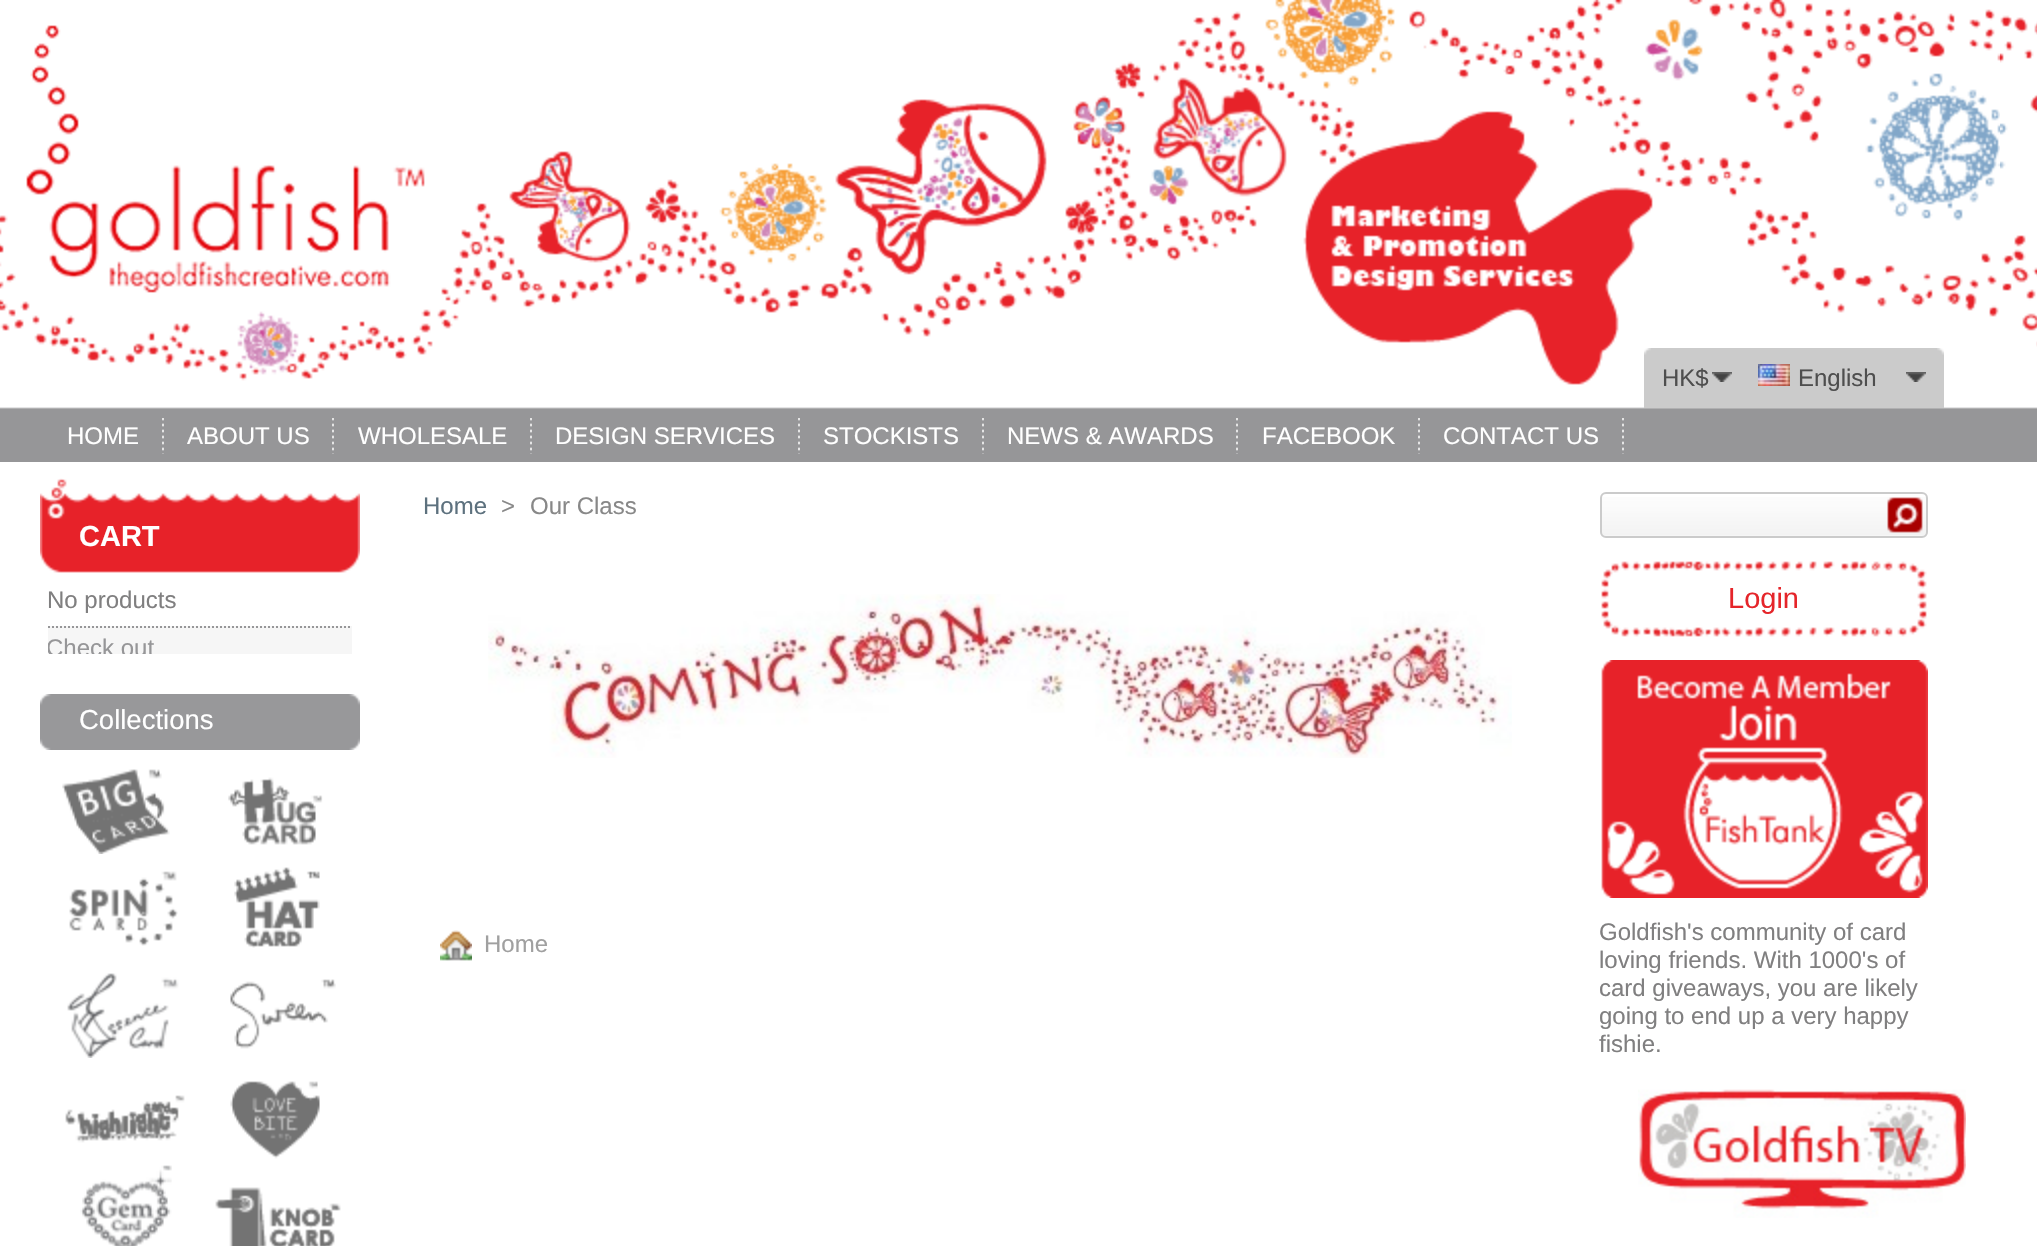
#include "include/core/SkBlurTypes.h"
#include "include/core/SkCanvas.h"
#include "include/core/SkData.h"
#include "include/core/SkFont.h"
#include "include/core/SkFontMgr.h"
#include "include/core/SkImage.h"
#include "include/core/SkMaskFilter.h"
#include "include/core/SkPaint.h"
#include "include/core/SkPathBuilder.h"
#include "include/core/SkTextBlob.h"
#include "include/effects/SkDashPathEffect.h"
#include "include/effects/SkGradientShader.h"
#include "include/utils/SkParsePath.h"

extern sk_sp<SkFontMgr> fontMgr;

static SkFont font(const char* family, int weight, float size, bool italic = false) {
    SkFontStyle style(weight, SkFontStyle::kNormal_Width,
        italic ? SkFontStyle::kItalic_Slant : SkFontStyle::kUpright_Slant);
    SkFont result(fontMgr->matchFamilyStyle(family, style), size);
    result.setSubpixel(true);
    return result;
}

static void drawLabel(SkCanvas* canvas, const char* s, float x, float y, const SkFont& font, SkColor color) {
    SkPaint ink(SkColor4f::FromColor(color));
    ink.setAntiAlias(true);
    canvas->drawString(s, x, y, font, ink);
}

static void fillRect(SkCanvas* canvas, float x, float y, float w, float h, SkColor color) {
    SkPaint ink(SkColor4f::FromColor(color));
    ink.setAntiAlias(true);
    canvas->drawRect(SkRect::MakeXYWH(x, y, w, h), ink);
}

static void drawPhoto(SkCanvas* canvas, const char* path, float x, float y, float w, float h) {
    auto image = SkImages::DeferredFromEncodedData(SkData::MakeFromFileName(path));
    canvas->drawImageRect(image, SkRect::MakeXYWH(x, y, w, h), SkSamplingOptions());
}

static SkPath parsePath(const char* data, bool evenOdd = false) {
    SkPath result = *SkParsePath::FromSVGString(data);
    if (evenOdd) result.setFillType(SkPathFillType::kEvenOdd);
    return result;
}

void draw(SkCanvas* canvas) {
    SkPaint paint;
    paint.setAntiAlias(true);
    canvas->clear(0xFFFFFFFF);
    drawPhoto(canvas, "assets/img1.png", 0, 0, 2037, 462);
    drawPhoto(canvas, "assets/img2.png", 40, 0, 1960, 381);
    drawPhoto(canvas, "assets/img3.png", 1303, 111, 350, 274);
    fillRect(canvas, 1644, 348, 300, 60, 0xFFCBCBCB);
    drawPhoto(canvas, "assets/img4.png", 1644, 348, 7, 7);
    drawPhoto(canvas, "assets/img5.png", 1712, 372, 20, 10);
    SkFont font1 = font("Liberation Sans", 400, 24);
    drawLabel(canvas, "HK$", 1662, 386, font1, 0xFF4E4E4E);
    drawPhoto(canvas, "assets/img6.png", 1937, 348, 7, 7);
    drawPhoto(canvas, "assets/img5.png", 1906, 372, 20, 10);
    drawPhoto(canvas, "assets/img7.png", 1758, 364, 32, 22);
    drawLabel(canvas, "English", 1798, 386, font1, 0xFF4E4E4E);
    drawPhoto(canvas, "assets/img8.png", 162, 418, 2, 36);
    drawLabel(canvas, "HOME", 67, 444, font1, 0xFFFFFFFF);
    drawPhoto(canvas, "assets/img8.png", 332, 418, 2, 36);
    drawLabel(canvas, "ABOUT US", 187, 444, font1, 0xFFFFFFFF);
    drawPhoto(canvas, "assets/img8.png", 530, 418, 2, 36);
    drawLabel(canvas, "WHOLESALE", 358, 444, font1, 0xFFFFFFFF);
    drawPhoto(canvas, "assets/img8.png", 798, 418, 2, 36);
    drawLabel(canvas, "DESIGN SERVICES", 555, 444, font1, 0xFFFFFFFF);
    drawPhoto(canvas, "assets/img8.png", 982, 418, 2, 36);
    drawLabel(canvas, "STOCKISTS", 823, 444, font1, 0xFFFFFFFF);
    drawPhoto(canvas, "assets/img8.png", 1236, 418, 2, 36);
    drawLabel(canvas, "NEWS & AWARDS", 1007, 444, font1, 0xFFFFFFFF);
    drawPhoto(canvas, "assets/img8.png", 1418, 418, 2, 36);
    drawLabel(canvas, "FACEBOOK", 1262, 444, font1, 0xFFFFFFFF);
    drawPhoto(canvas, "assets/img8.png", 1622, 418, 2, 36);
    drawLabel(canvas, "CONTACT US", 1443, 444, font1, 0xFFFFFFFF);
    drawPhoto(canvas, "assets/img9.png", 40, 478, 320, 95);
    SkFont font2 = font("Liberation Sans", 700, 29);
    drawLabel(canvas, "CART", 79, 546, font2, 0xFFFFFFFF);
    drawLabel(canvas, "No products", 47, 608, font1, 0xFF807F80);
    fillRect(canvas, 48, 626, 304, 28, 0xFFF6F6F6);
    canvas->save();
    canvas->clipRect(SkRect::MakeXYWH(48, 574, 304, 80));
    paint.setStroke(true);
    paint.setStrokeWidth(2);
    paint.setColor(0xFF969698);
    paint.setPathEffect(SkDashPathEffect::Make({{2, 2}}, 0));
    canvas->drawPath(parsePath("M40 627H358"), paint);
    paint.setPathEffect(nullptr);
    drawLabel(canvas, "Check out", 46, 656, font1, 0xFF969698);
    canvas->restore();
    drawPhoto(canvas, "assets/img10.png", 40, 694, 320, 56);
    SkFont font3 = font("Liberation Sans", 400, 27.5f);
    drawLabel(canvas, "Collections", 79, 729, font3, 0xFFFFFFFF);
    drawPhoto(canvas, "assets/img11.png", 62, 769, 108, 85);
    drawPhoto(canvas, "assets/img12.png", 228, 777, 95, 68);
    drawPhoto(canvas, "assets/img13.png", 69, 871, 109, 75);
    drawPhoto(canvas, "assets/img14.png", 234, 867, 86, 81);
    drawPhoto(canvas, "assets/img15.png", 67, 973, 112, 85);
    drawPhoto(canvas, "assets/img16.png", 230, 979, 106, 70);
    drawPhoto(canvas, "assets/img17.png", 65, 1095, 120, 48);
    drawPhoto(canvas, "assets/img18.png", 230, 1081, 90, 78);
    drawPhoto(canvas, "assets/img19.png", 80, 1165, 92, 81);
    drawPhoto(canvas, "assets/img20.png", 215, 1187, 126, 59);
    drawLabel(canvas, "Home", 423, 514, font1, 0xFF5D717E);
    drawLabel(canvas, ">", 501, 514, font1, 0xFF888888);
    drawLabel(canvas, "Our Class", 530, 514, font1, 0xFF888888);
    drawPhoto(canvas, "assets/img21.png", 488, 594, 1024, 164);
    drawPhoto(canvas, "assets/img22.png", 440, 930, 32, 31);
    drawLabel(canvas, "Home", 484, 952, font1, 0xFFA0A0A0);
    drawPhoto(canvas, "assets/img23.png", 1600, 497, 328, 39);
    paint.setColor(0xFFCBCBCB);
    canvas->drawRoundRect(SkRect::MakeXYWH(1601, 493, 326, 44), 5, 5, paint);
    drawPhoto(canvas, "assets/img24.png", 1601, 561, 326, 76);
    SkFont font4 = font("Liberation Sans", 400, 29);
    drawLabel(canvas, "Login", 1728, 608, font4, 0xFFE5252A);
    drawPhoto(canvas, "assets/img25.png", 1601, 660, 327, 238);
    drawLabel(canvas, "Goldfish's community of card", 1599, 940, font1, 0xFF807F80);
    drawLabel(canvas, "loving friends. With 1000's of", 1599, 968, font1, 0xFF807F80);
    drawLabel(canvas, "card giveaways, you are likely", 1599, 996, font1, 0xFF807F80);
    drawLabel(canvas, "going to end up a very happy", 1599, 1024, font1, 0xFF807F80);
    drawLabel(canvas, "fishie.", 1599, 1052, font1, 0xFF807F80);
    drawPhoto(canvas, "assets/img26.png", 1638, 1089, 328, 129);
}
